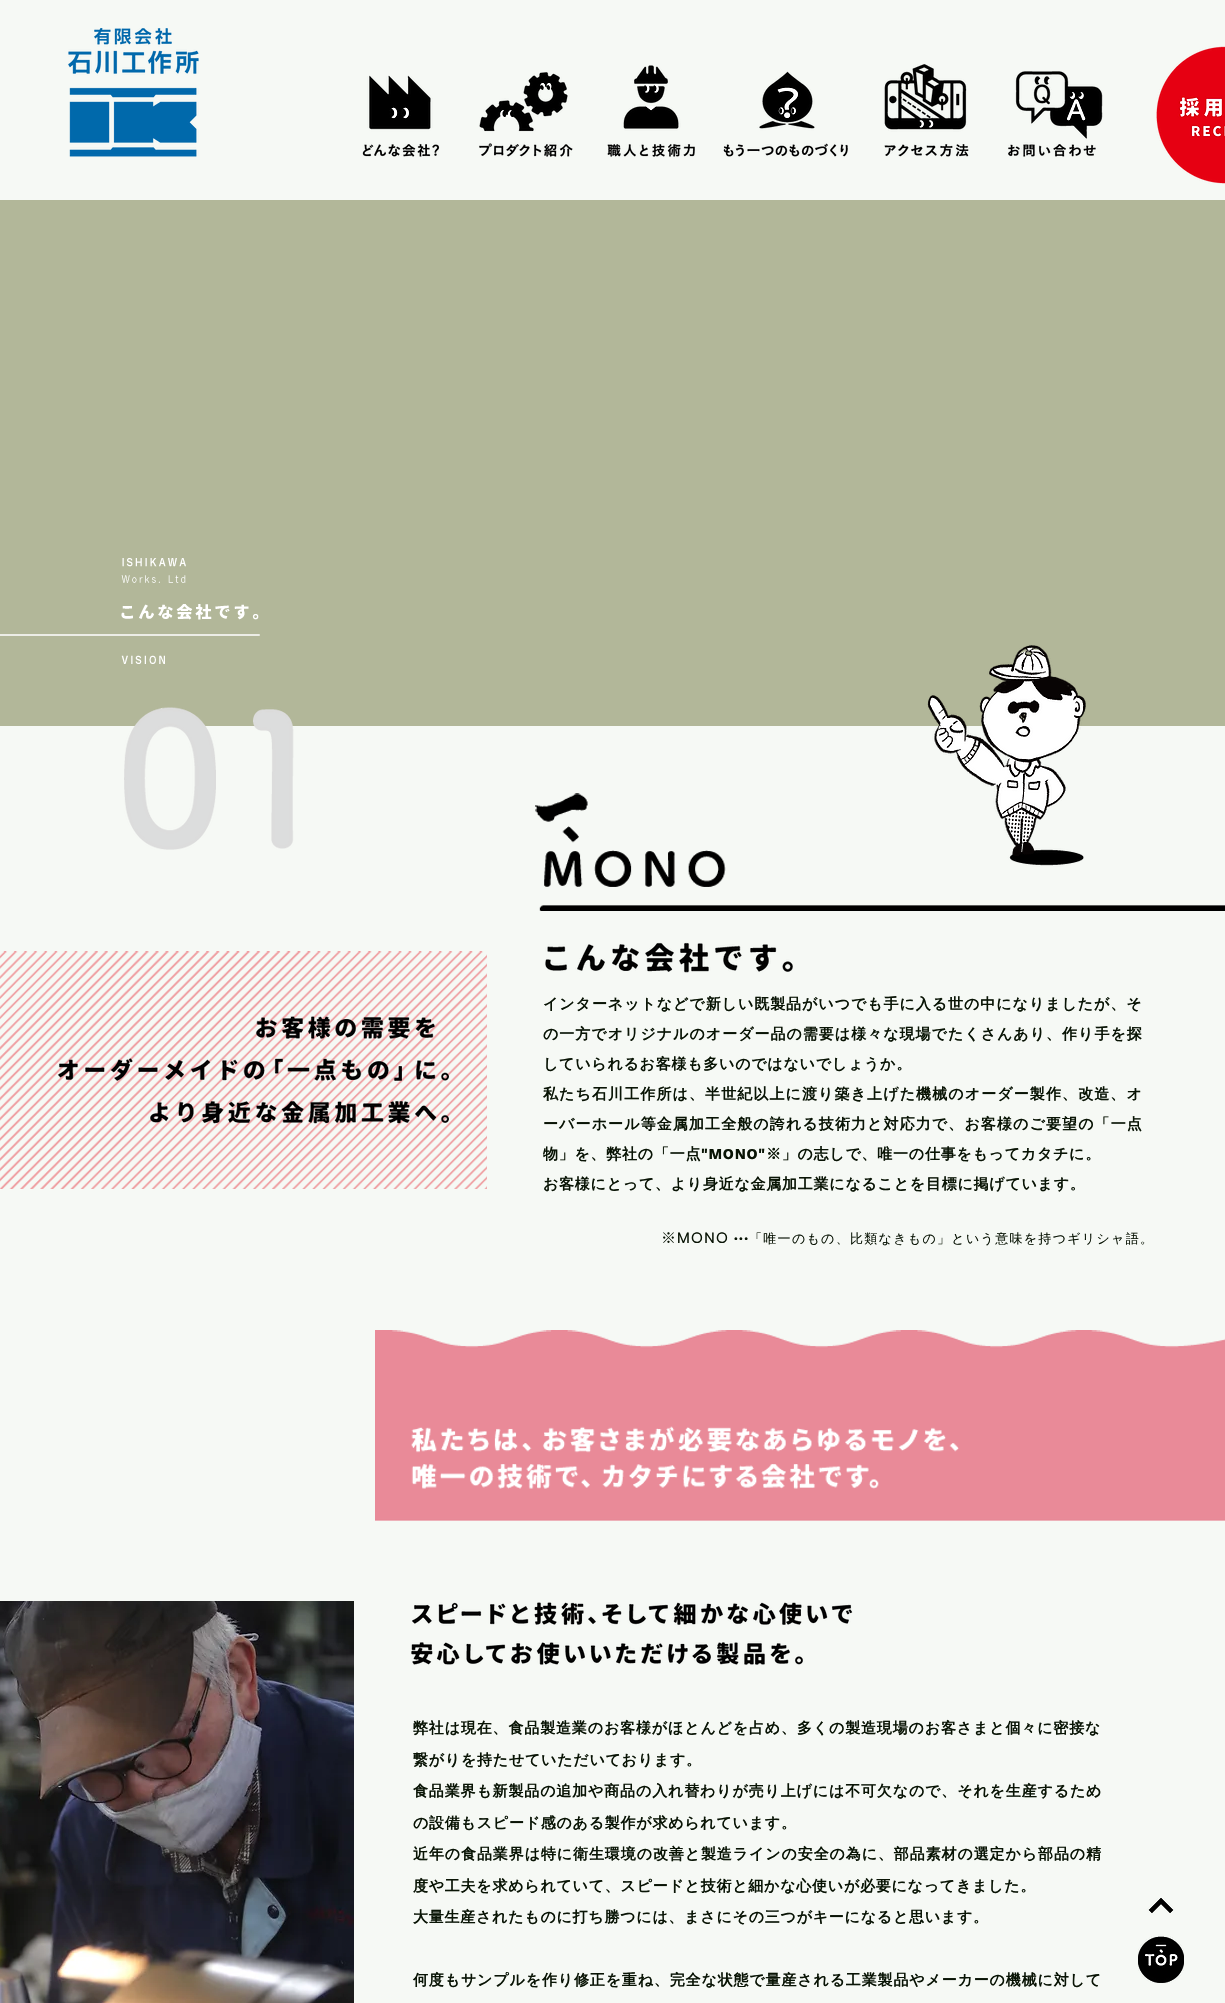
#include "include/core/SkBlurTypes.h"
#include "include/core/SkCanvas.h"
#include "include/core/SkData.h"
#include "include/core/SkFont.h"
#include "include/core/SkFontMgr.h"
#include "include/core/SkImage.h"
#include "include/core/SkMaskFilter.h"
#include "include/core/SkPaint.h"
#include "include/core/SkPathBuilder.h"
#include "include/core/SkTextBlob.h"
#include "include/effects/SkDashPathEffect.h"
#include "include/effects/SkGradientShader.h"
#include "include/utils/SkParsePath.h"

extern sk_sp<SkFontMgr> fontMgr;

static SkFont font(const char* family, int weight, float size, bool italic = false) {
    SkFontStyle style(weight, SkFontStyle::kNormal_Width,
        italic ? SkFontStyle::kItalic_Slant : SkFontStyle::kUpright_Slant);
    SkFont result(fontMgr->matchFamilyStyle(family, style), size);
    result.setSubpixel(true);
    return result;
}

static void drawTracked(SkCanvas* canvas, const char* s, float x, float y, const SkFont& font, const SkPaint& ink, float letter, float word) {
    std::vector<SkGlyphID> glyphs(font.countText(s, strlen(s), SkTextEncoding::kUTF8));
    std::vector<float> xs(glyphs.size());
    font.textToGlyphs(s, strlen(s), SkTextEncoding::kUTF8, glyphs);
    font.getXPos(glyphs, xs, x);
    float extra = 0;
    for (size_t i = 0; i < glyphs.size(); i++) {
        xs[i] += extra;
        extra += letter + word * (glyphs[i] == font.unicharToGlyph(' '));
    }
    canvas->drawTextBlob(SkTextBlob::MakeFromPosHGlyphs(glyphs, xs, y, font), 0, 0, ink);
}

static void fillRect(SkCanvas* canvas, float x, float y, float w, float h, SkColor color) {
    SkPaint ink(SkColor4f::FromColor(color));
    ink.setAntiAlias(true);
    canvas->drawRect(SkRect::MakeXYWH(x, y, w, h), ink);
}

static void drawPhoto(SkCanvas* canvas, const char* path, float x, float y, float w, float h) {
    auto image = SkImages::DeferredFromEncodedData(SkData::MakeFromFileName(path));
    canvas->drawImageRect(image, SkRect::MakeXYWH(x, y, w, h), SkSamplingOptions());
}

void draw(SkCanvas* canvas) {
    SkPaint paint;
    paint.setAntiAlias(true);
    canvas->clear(0xFFF6F9F5);
    drawPhoto(canvas, "assets/img1.png", 68, 28, 131, 129);
    drawPhoto(canvas, "assets/img2.png", 362, 75, 78, 82);
    drawPhoto(canvas, "assets/img3.png", 479, 72, 94, 85);
    drawPhoto(canvas, "assets/img4.png", 607, 65, 88, 92);
    drawPhoto(canvas, "assets/img5.png", 723, 71, 125, 86);
    drawPhoto(canvas, "assets/img6.png", 884, 64, 85, 93);
    drawPhoto(canvas, "assets/img7.png", 1008, 71, 95, 86);
    drawPhoto(canvas, "assets/img8.png", 1156, 46, 69, 138);
    fillRect(canvas, 0, 200, 1225, 526, 0xFFB2B799);
    drawPhoto(canvas, "assets/img9.png", 0, 558, 260, 106);
    drawPhoto(canvas, "assets/img10.png", 124, 707, 170, 143);
    drawPhoto(canvas, "assets/img11.png", 927, 645, 159, 222);
    drawPhoto(canvas, "assets/img12.png", 535, 793, 690, 118);
    drawPhoto(canvas, "assets/img13.png", 0, 951, 487, 238);
    drawPhoto(canvas, "assets/img14.png", 545, 942, 248, 31);
    drawPhoto(canvas, "assets/img15.png", 57, 1015, 392, 109);
    SkFont font1 = font("WenQuanYi Zen Hei", 700, 15);
    paint.setColor(0xFF091405);
    drawTracked(canvas, "インターネットなどで新しい既製品がいつでも手に入る世の中になりましたが、そ", 543, 1009, font1, paint, 0.95f, 0);
    drawTracked(canvas, "の一方でオリジナルのオーダー品の需要は様々な現場でたくさんあり、作り手を探", 543, 1039, font1, paint, 1, 0);
    drawTracked(canvas, "していられるお客様も多いのではないでしょうか。", 543, 1069, font1, paint, 0.75f, 0);
    drawTracked(canvas, "私たち石川工作所は、半世紀以上に渡り築き上げた機械のオーダー製作、改造、オ", 543, 1099, font1, paint, 1.1f, 0);
    drawTracked(canvas, "ーバーホール等金属加工全般の誇れる技術力と対応力で、お客様のご要望の「一点", 543, 1129, font1, paint, 1.1f, 0);
    drawTracked(canvas, "物」を、弊社の「一点", 543, 1159, font1, paint, 0.75f, 0);
    SkFont font2 = font("Work Sans", 700, 15);
    drawTracked(canvas, "\"MONO\"", 701, 1159, font2, paint, 0.75f, 0);
    drawTracked(canvas, "※」の志しで、唯一の仕事をもってカタチに。", 766, 1159, font1, paint, 0.75f, 0);
    drawTracked(canvas, "お客様にとって、より身近な金属加工業になることを目標に掲げています。", 543, 1189, font1, paint, 0.75f, 0);
    SkFont font3 = font("WenQuanYi Zen Hei", 500, 15);
    drawTracked(canvas, "※", 661, 1243, font3, paint, 1.3f, 0);
    SkFont font4 = font("Poppins", 400, 15);
    drawTracked(canvas, "MONO", 677, 1243, font4, paint, 1.3f, 0);
    SkFont font5 = font("Poppins", 200, 13);
    drawTracked(canvas, "•••", 734, 1243, font5, paint, 1.3f, 0);
    SkFont font6 = font("WenQuanYi Zen Hei", 500, 13);
    drawTracked(canvas, "「唯一のもの、比類なきもの」という意味を持つギリシャ語。", 749, 1243, font6, paint, 1.3f, 0);
    drawPhoto(canvas, "assets/img16.png", 375, 1330, 850, 191);
    drawPhoto(canvas, "assets/img17.png", 411, 1426, 548, 63);
    drawPhoto(canvas, "assets/img18.png", 0, 1601, 354, 402);
    drawPhoto(canvas, "assets/img19.png", 411, 1602, 442, 63);
    drawTracked(canvas, "弊社は現在、食品製造業のお客様がほとんどを占め、多くの製造現場のお客さまと個々に密接な", 413, 1733, font1, paint, 0.85f, 0);
    drawTracked(canvas, "繋がりを持たせていただいております。", 413, 1765, font1, paint, 0.75f, 0);
    drawTracked(canvas, "食品業界も新製品の追加や商品の入れ替わりが売り上げには不可欠なので、それを生産するため", 413, 1796, font1, paint, 0.85f, 0);
    drawTracked(canvas, "の設備もスピード感のある製作が求められています。", 413, 1828, font1, paint, 0.75f, 0);
    drawTracked(canvas, "近年の食品業界は特に衛生環境の改善と製造ラインの安全の為に、部品素材の選定から部品の精", 413, 1859, font1, paint, 0.9f, 0);
    drawTracked(canvas, "度や工夫を求められていて、スピードと技術と細かな心使いが必要になってきました。", 413, 1891, font1, paint, 0.75f, 0);
    drawTracked(canvas, "大量生産されたものに打ち勝つには、まさにその三つがキーになると思います。", 413, 1922, font1, paint, 0.75f, 0);
    drawTracked(canvas, "何度もサンプルを作り修正を重ね、完全な状態で量産される工業製品やメーカーの機械に対して", 413, 1985, font1, paint, 0.85f, 0);
    drawPhoto(canvas, "assets/img20.png", 1138, 1898, 46, 85);
    drawPhoto(canvas, "assets/img21.png", 1138, 1898, 46, 85);
}
